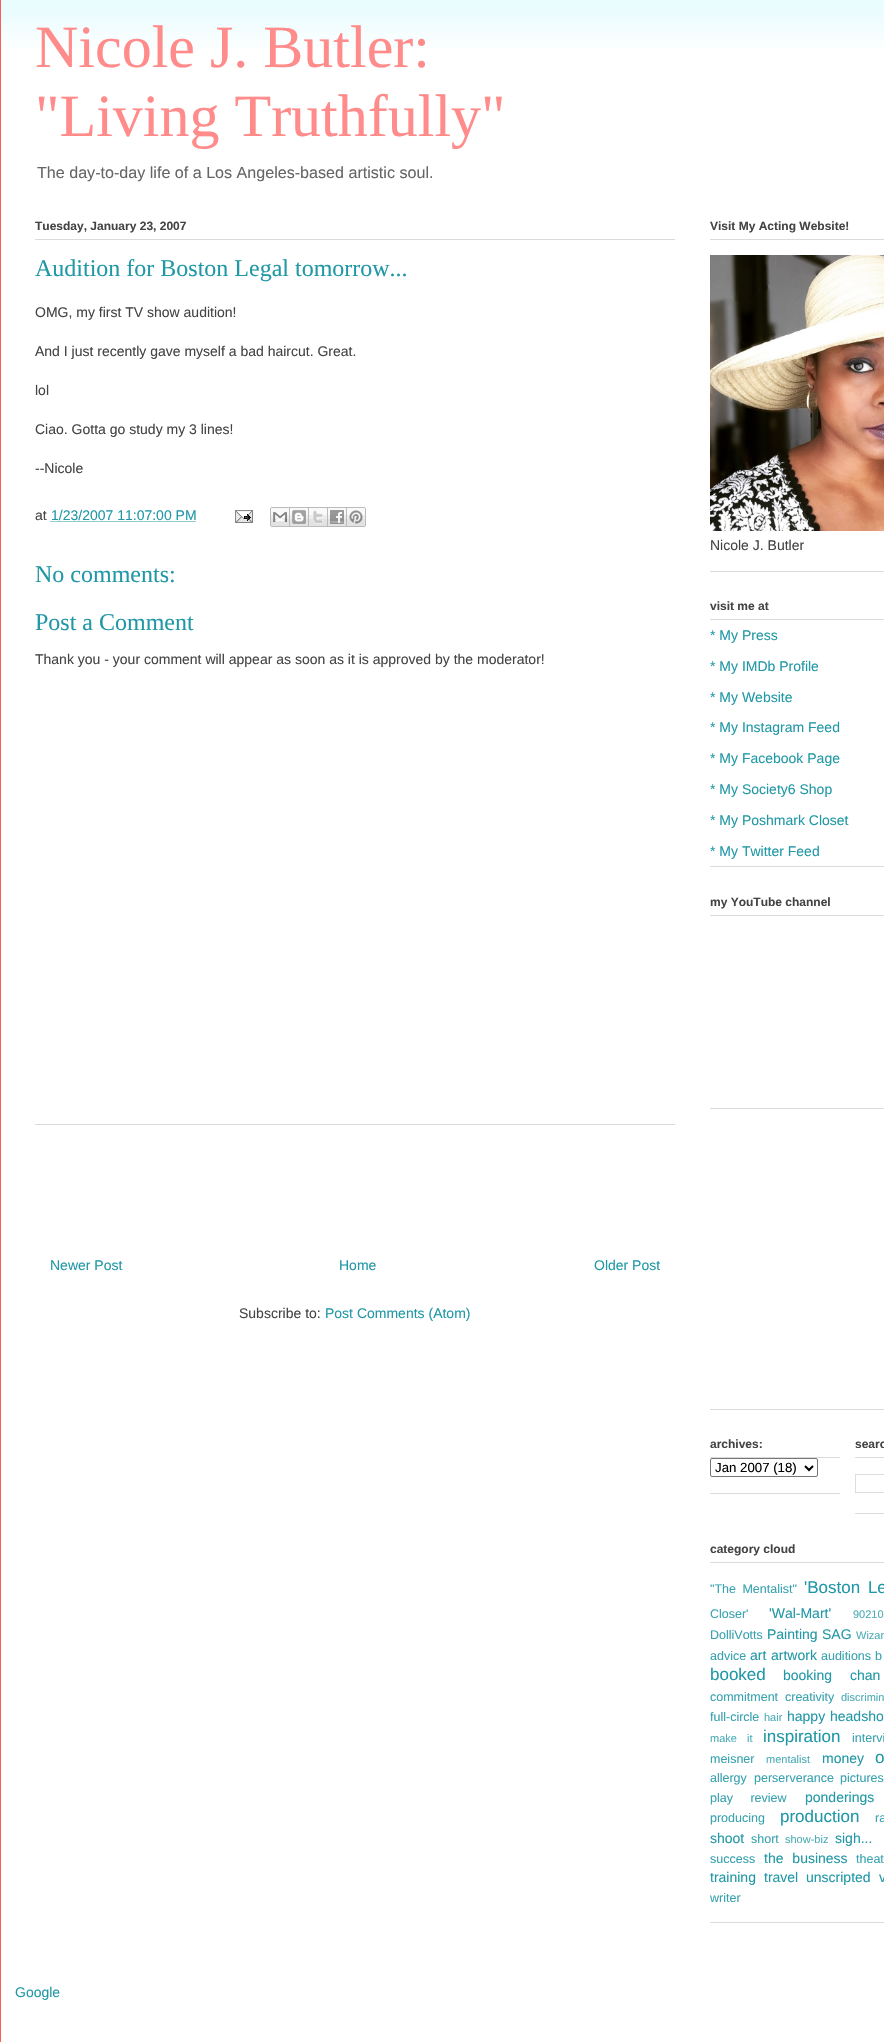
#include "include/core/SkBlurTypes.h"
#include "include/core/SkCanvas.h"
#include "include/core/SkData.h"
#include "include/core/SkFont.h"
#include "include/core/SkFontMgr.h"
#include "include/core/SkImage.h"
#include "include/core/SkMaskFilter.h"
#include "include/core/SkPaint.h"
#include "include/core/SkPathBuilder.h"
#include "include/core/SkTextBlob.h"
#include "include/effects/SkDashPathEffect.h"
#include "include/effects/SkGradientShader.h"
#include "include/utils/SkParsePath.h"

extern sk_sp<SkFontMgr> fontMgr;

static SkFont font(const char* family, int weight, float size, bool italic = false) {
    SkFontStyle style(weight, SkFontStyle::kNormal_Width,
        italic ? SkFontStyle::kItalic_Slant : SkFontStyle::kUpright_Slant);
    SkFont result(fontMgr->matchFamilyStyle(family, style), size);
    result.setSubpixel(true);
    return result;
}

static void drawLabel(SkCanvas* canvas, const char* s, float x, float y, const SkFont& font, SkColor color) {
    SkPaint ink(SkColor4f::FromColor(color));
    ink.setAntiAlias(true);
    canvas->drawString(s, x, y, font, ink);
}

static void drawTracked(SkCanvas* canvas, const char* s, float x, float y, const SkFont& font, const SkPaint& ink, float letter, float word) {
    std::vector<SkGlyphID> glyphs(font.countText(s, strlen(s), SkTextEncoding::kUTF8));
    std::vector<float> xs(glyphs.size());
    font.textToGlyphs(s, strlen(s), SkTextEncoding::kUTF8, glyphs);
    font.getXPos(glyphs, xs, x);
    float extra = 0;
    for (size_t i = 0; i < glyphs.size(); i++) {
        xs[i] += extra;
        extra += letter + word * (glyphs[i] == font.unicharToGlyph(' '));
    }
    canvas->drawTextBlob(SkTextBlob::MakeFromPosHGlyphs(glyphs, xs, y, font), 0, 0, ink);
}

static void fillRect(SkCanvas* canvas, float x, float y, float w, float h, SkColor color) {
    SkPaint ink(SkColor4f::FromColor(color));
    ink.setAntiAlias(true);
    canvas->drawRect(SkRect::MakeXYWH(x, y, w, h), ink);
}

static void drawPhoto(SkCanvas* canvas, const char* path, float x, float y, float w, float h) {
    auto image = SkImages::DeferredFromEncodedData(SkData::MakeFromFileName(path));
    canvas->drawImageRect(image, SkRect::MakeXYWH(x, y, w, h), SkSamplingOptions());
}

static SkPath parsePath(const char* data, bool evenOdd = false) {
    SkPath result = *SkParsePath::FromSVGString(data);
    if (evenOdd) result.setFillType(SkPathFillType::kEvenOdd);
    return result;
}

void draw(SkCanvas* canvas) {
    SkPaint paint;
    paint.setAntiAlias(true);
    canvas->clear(0xFFFFFFFF);
    drawPhoto(canvas, "assets/img1.png", 1, 0, 883, 48);
    fillRect(canvas, 0, 0, 1, 2042, 0xFFFB5E53);
    SkFont font1 = font("Liberation Serif", 400, 60);
    drawLabel(canvas, "Nicole J. Butler:", 35, 67, font1, 0xFFFF8B8B);
    drawLabel(canvas, "\"Living Truthfully\"", 35, 136, font1, 0xFFFF8B8B);
    SkFont font2 = font("Liberation Sans", 400, 16.1f);
    drawLabel(canvas, "The day-to-day life of a Los Angeles-based artistic soul.", 37, 178, font2, 0xFF666666);
    fillRect(canvas, 35, 239, 640, 1, 0xFFDBDBDB);
    SkFont font3 = font("Liberation Sans", 700, 12);
    drawLabel(canvas, "Tuesday, January 23, 2007", 35, 230, font3, 0xFF444444);
    fillRect(canvas, 35, 1124, 640, 1, 0xFFDBDBDB);
    SkFont font4 = font("Liberation Serif", 400, 24);
    drawLabel(canvas, "Audition for Boston Legal tomorrow...", 35, 276, font4, 0xFF2198A6);
    SkFont font5 = font("Liberation Sans", 400, 14);
    drawLabel(canvas, "OMG, my first TV show audition!", 35, 317, font5, 0xFF444444);
    drawLabel(canvas, "And I just recently gave myself a bad haircut. Great.", 35, 356, font5, 0xFF444444);
    drawLabel(canvas, "lol", 35, 395, font5, 0xFF444444);
    drawLabel(canvas, "Ciao. Gotta go study my 3 lines!", 35, 434, font5, 0xFF444444);
    drawLabel(canvas, "--Nicole", 35, 473, font5, 0xFF444444);
    drawLabel(canvas, "at", 35, 520, font5, 0xFF444444);
    drawLabel(canvas, "1/23/2007 11:07:00 PM", 51, 520, font5, 0xFF2198A6);
    paint.setStroke(true);
    paint.setStrokeWidth(1);
    paint.setColor(0xFF2198A6);
    paint.setPathEffect(SkDashPathEffect::Make({{1, 1}}, 0));
    canvas->drawPath(parsePath("M50.5 521.5H196"), paint);
    paint.setPathEffect(nullptr);
    drawPhoto(canvas, "assets/img2.png", 235, 510, 18, 13);
    drawPhoto(canvas, "assets/img3.png", 270, 507, 20, 20);
    drawPhoto(canvas, "assets/img4.png", 290, 507, 19, 20);
    drawPhoto(canvas, "assets/img5.png", 309, 507, 19, 20);
    drawPhoto(canvas, "assets/img6.png", 328, 507, 19, 20);
    drawPhoto(canvas, "assets/img7.png", 347, 507, 19, 20);
    drawLabel(canvas, "No comments:", 35, 582, font4, 0xFF2198A6);
    drawLabel(canvas, "Post a Comment", 35, 630, font4, 0xFF2198A6);
    drawLabel(canvas, "Thank you - your comment will appear as soon as it is approved by the moderator!", 35, 664, font5, 0xFF444444);
    drawLabel(canvas, "Newer Post", 50, 1270, font5, 0xFF2198A6);
    drawLabel(canvas, "Home", 339, 1270, font5, 0xFF2198A6);
    drawLabel(canvas, "Older Post", 594, 1270, font5, 0xFF2198A6);
    drawLabel(canvas, "Subscribe to:", 239, 1318, font5, 0xFF444444);
    drawLabel(canvas, "Post Comments (Atom)", 325, 1318, font5, 0xFF2198A6);
    fillRect(canvas, 710, 571, 174, 1, 0xFFDBDBDB);
    fillRect(canvas, 710, 239, 174, 1, 0xFFDBDBDB);
    drawLabel(canvas, "Visit My Acting Website!", 710, 230, font3, 0xFF444444);
    drawPhoto(canvas, "assets/img8.png", 710, 255, 174, 276);
    drawLabel(canvas, "Nicole J. Butler", 710, 550, font5, 0xFF444444);
    fillRect(canvas, 710, 866, 174, 1, 0xFFDBDBDB);
    fillRect(canvas, 710, 619, 174, 1, 0xFFDBDBDB);
    drawLabel(canvas, "visit me at", 710, 610, font3, 0xFF444444);
    drawLabel(canvas, "* My Press", 710, 640, font5, 0xFF2198A6);
    drawLabel(canvas, "* My IMDb Profile", 710, 671, font5, 0xFF2198A6);
    drawLabel(canvas, "* My Website", 710, 702, font5, 0xFF2198A6);
    drawLabel(canvas, "* My Instagram Feed", 710, 732, font5, 0xFF2198A6);
    drawLabel(canvas, "* My Facebook Page", 710, 763, font5, 0xFF2198A6);
    drawLabel(canvas, "* My Society6 Shop", 710, 794, font5, 0xFF2198A6);
    drawLabel(canvas, "* My Poshmark Closet", 710, 825, font5, 0xFF2198A6);
    drawLabel(canvas, "* My Twitter Feed", 710, 856, font5, 0xFF2198A6);
    fillRect(canvas, 710, 1108, 174, 1, 0xFFDBDBDB);
    fillRect(canvas, 710, 915, 174, 1, 0xFFDBDBDB);
    drawLabel(canvas, "my YouTube channel", 710, 906, font3, 0xFF444444);
    fillRect(canvas, 710, 1409, 174, 1, 0xFFDBDBDB);
    fillRect(canvas, 710, 1493, 130, 1, 0xFFDBDBDB);
    fillRect(canvas, 710, 1457, 130, 1, 0xFFDBDBDB);
    drawLabel(canvas, "archives:", 710, 1448, font3, 0xFF444444);
    paint.setColor(0xFF767676);
    canvas->drawRoundRect(SkRect::MakeXYWH(710.5f, 1458.5f, 107, 18), 1.5f, 1.5f, paint);
    paint.setStrokeWidth(2);
    paint.setColor(0xFF000000);
    canvas->drawPath(parsePath("M805 1466L809 1470L813 1466"), paint);
    SkFont font6 = font("Liberation Sans", 400, 13.25f);
    drawLabel(canvas, "Jan 2007 (18)", 715, 1472, font6, 0xFF000000);
    fillRect(canvas, 855, 1513, 29, 1, 0xFFDBDBDB);
    fillRect(canvas, 855, 1457, 29, 1, 0xFFDBDBDB);
    drawLabel(canvas, "searc", 855, 1448, font3, 0xFF444444);
    paint.setStrokeWidth(1);
    paint.setColor(0xFFDDDDDD);
    canvas->drawRect(SkRect::MakeXYWH(855.5f, 1474.5f, 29, 18), paint);
    fillRect(canvas, 710, 1922, 174, 1, 0xFFDBDBDB);
    fillRect(canvas, 710, 1562, 174, 1, 0xFFDBDBDB);
    drawLabel(canvas, "category cloud", 710, 1553, font3, 0xFF444444);
    SkFont font7 = font("Liberation Sans", 400, 12.5f);
    paint.setStroke(false);
    paint.setColor(0xFF37A2AF);
    drawTracked(canvas, "\"The Mentalist\"", 710, 1593, font7, paint, 0, 3);
    SkFont font8 = font("Liberation Sans", 400, 17);
    paint.setColor(0xFF2198A6);
    drawTracked(canvas, "'Boston Le", 804, 1593, font8, paint, 0, 3);
    drawLabel(canvas, "Closer'", 710, 1618, font7, 0xFF37A2AF);
    drawLabel(canvas, "'Wal-Mart'", 769, 1618, font5, 0xFF2198A6);
    SkFont font9 = font("Liberation Sans", 400, 11);
    drawLabel(canvas, "90210", 853, 1618, font9, 0xFF4DADB8);
    drawLabel(canvas, "DolliVotts", 710, 1639, font7, 0xFF37A2AF);
    drawLabel(canvas, "Painting", 767, 1639, font5, 0xFF2198A6);
    drawLabel(canvas, "SAG", 822, 1639, font5, 0xFF2198A6);
    drawLabel(canvas, "Wizar", 856, 1639, font9, 0xFF4DADB8);
    drawLabel(canvas, "advice", 710, 1660, font7, 0xFF37A2AF);
    drawLabel(canvas, "art", 750, 1660, font5, 0xFF2198A6);
    drawLabel(canvas, "artwork", 771, 1660, font5, 0xFF2198A6);
    drawLabel(canvas, "auditions", 821, 1660, font7, 0xFF37A2AF);
    drawLabel(canvas, "b", 875, 1660, font7, 0xFF37A2AF);
    drawLabel(canvas, "booked", 710, 1680, font8, 0xFF2198A6);
    drawLabel(canvas, "booking", 783, 1680, font5, 0xFF2198A6);
    drawLabel(canvas, "chan", 850, 1680, font5, 0xFF2198A6);
    drawLabel(canvas, "commitment", 710, 1701, font7, 0xFF37A2AF);
    drawLabel(canvas, "creativity", 785, 1701, font7, 0xFF37A2AF);
    drawLabel(canvas, "discrimin", 841, 1701, font9, 0xFF4DADB8);
    drawLabel(canvas, "full-circle", 710, 1721, font7, 0xFF37A2AF);
    drawLabel(canvas, "hair", 764, 1721, font9, 0xFF4DADB8);
    drawLabel(canvas, "happy", 787, 1721, font5, 0xFF2198A6);
    drawLabel(canvas, "headsho", 830, 1721, font5, 0xFF2198A6);
    paint.setColor(0xFF4DADB8);
    drawTracked(canvas, "make it", 710, 1742, font9, paint, 0, 7);
    drawLabel(canvas, "inspiration", 763, 1742, font8, 0xFF2198A6);
    drawLabel(canvas, "intervi", 852, 1742, font7, 0xFF37A2AF);
    drawLabel(canvas, "meisner", 710, 1763, font7, 0xFF37A2AF);
    drawLabel(canvas, "mentalist", 766, 1763, font9, 0xFF4DADB8);
    drawLabel(canvas, "money", 822, 1763, font5, 0xFF2198A6);
    drawLabel(canvas, "o", 875, 1763, font8, 0xFF2198A6);
    drawLabel(canvas, "allergy", 710, 1782, font7, 0xFF37A2AF);
    drawLabel(canvas, "perserverance", 754, 1782, font7, 0xFF37A2AF);
    drawLabel(canvas, "pictures", 840, 1782, font7, 0xFF37A2AF);
    paint.setColor(0xFF37A2AF);
    drawTracked(canvas, "play review", 710, 1802, font7, paint, 0, 14);
    drawLabel(canvas, "ponderings", 805, 1802, font5, 0xFF2198A6);
    drawLabel(canvas, "producing", 710, 1822, font7, 0xFF37A2AF);
    drawLabel(canvas, "production", 780, 1822, font8, 0xFF2198A6);
    drawLabel(canvas, "ra", 875, 1822, font7, 0xFF37A2AF);
    drawLabel(canvas, "shoot", 710, 1843, font5, 0xFF2198A6);
    drawLabel(canvas, "short", 751, 1843, font7, 0xFF37A2AF);
    drawLabel(canvas, "show-biz", 785, 1843, font9, 0xFF4DADB8);
    drawLabel(canvas, "sigh...", 835, 1843, font5, 0xFF2198A6);
    drawLabel(canvas, "success", 710, 1863, font7, 0xFF37A2AF);
    paint.setColor(0xFF2198A6);
    drawTracked(canvas, "the business", 764, 1863, font5, paint, 0, 5);
    drawLabel(canvas, "theat", 856, 1863, font7, 0xFF37A2AF);
    drawLabel(canvas, "training", 710, 1882, font5, 0xFF2198A6);
    drawLabel(canvas, "travel", 764, 1882, font5, 0xFF2198A6);
    drawLabel(canvas, "unscripted", 806, 1882, font5, 0xFF2198A6);
    drawLabel(canvas, "v", 879, 1882, font5, 0xFF2198A6);
    drawLabel(canvas, "writer", 710, 1902, font7, 0xFF37A2AF);
    drawLabel(canvas, "Google", 15, 1997, font5, 0xFF2198A6);
}
